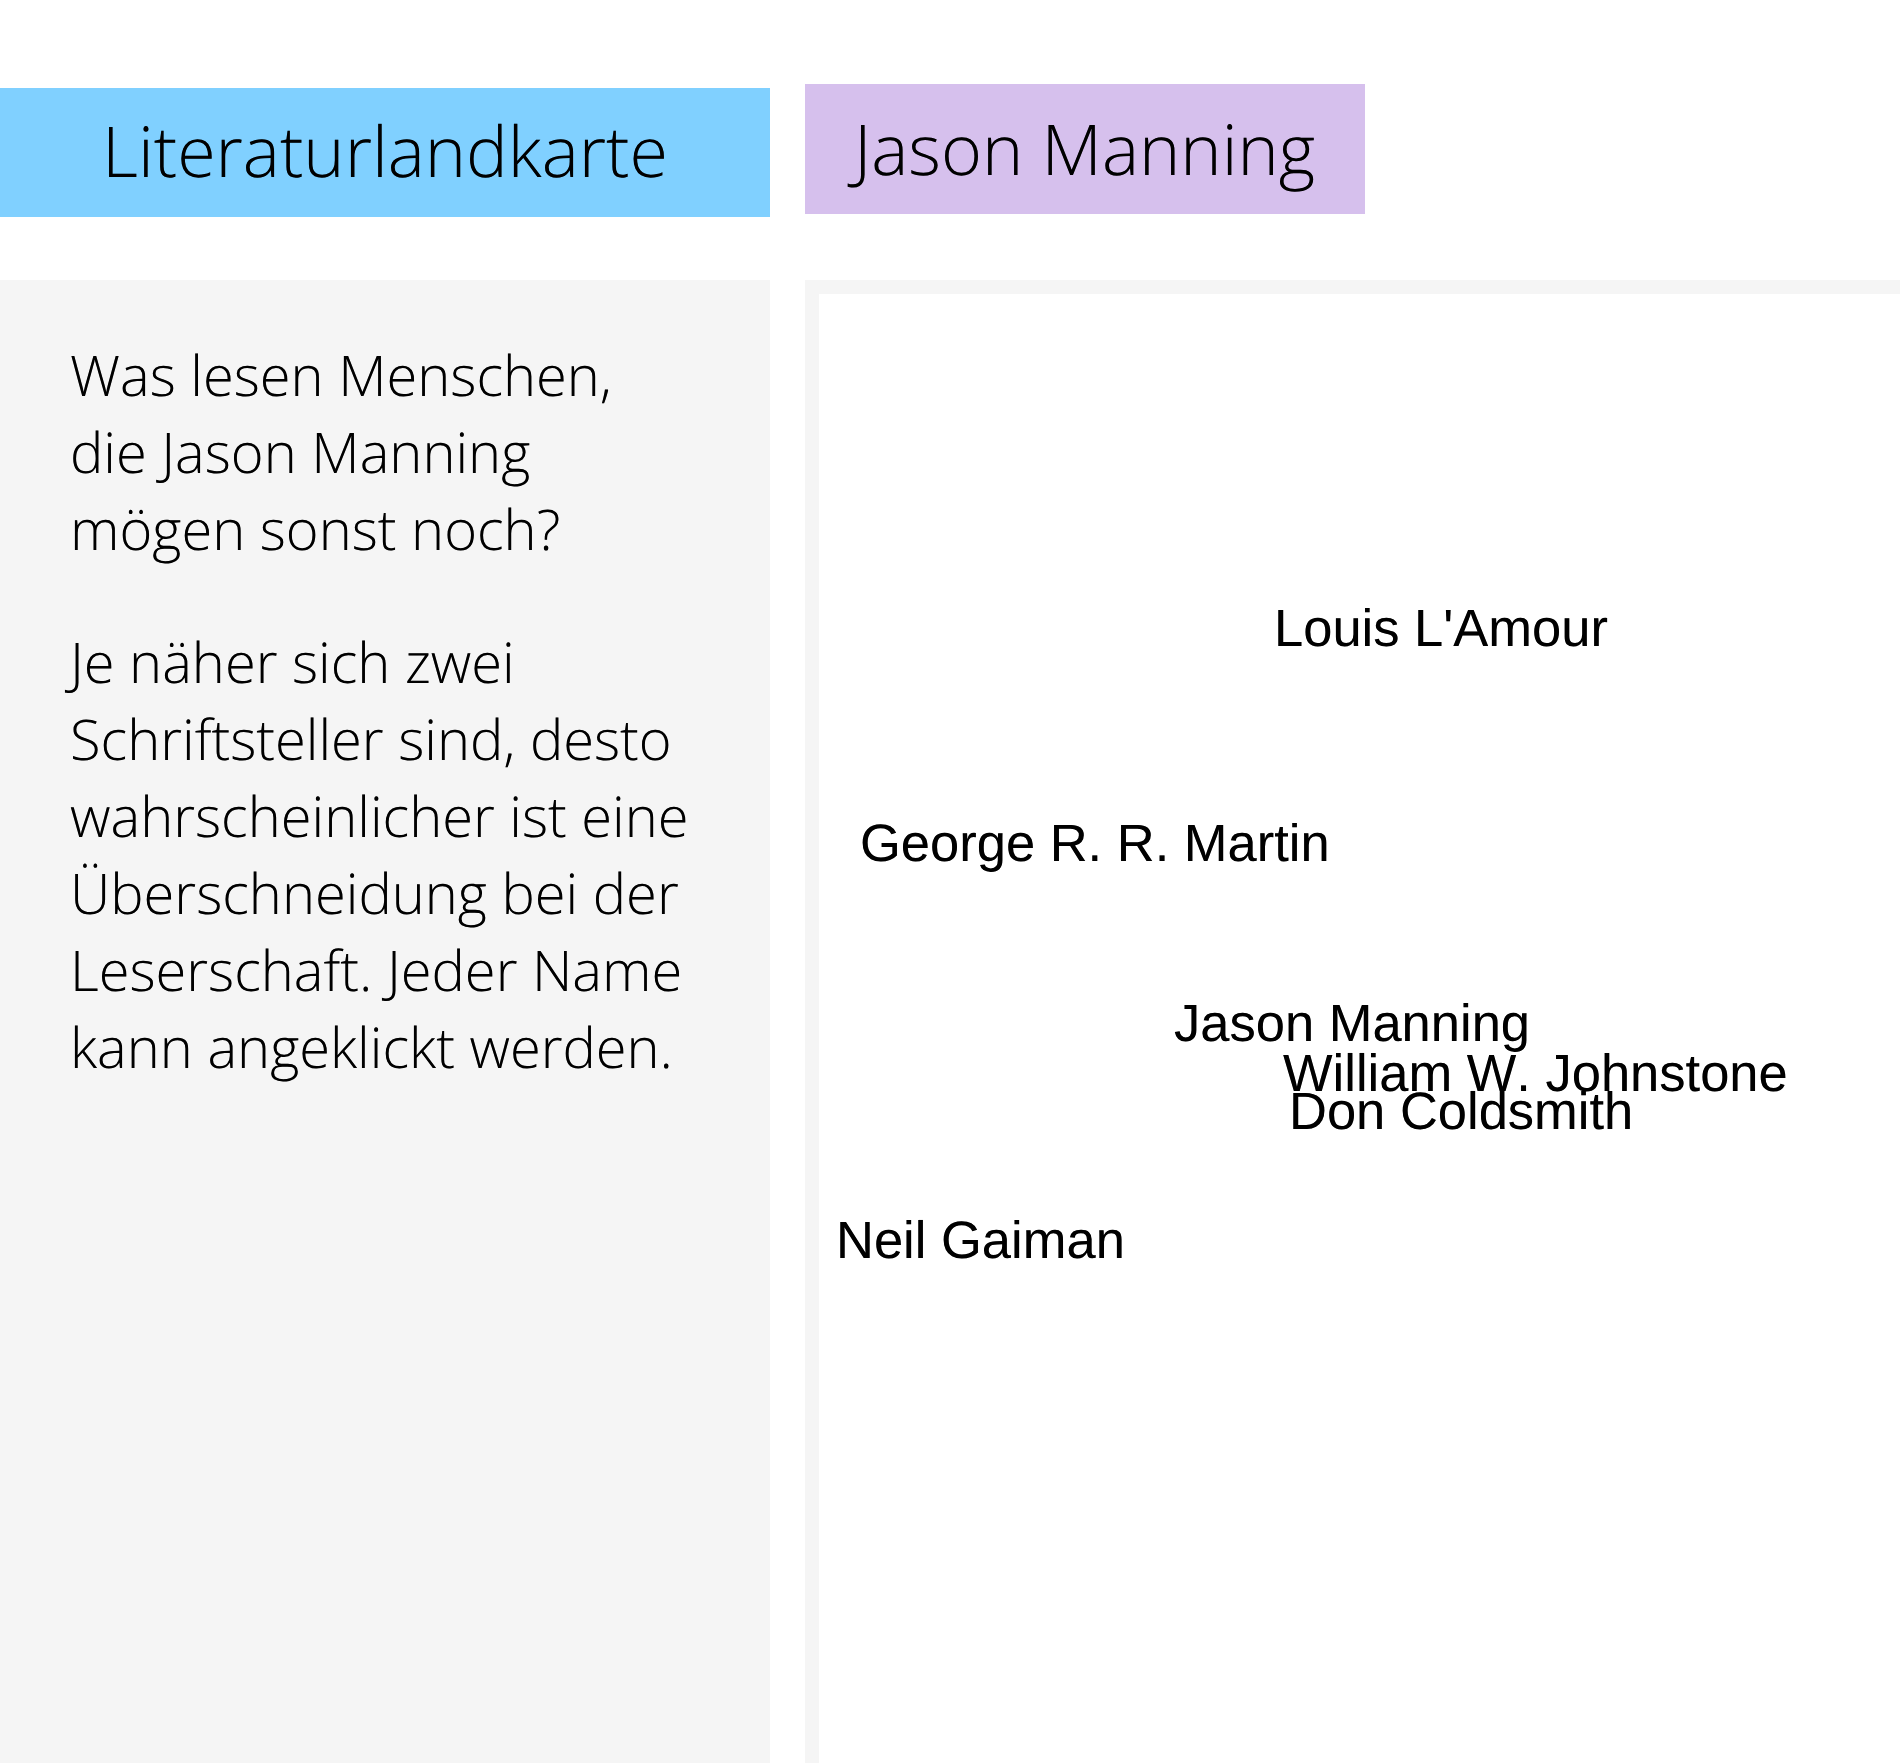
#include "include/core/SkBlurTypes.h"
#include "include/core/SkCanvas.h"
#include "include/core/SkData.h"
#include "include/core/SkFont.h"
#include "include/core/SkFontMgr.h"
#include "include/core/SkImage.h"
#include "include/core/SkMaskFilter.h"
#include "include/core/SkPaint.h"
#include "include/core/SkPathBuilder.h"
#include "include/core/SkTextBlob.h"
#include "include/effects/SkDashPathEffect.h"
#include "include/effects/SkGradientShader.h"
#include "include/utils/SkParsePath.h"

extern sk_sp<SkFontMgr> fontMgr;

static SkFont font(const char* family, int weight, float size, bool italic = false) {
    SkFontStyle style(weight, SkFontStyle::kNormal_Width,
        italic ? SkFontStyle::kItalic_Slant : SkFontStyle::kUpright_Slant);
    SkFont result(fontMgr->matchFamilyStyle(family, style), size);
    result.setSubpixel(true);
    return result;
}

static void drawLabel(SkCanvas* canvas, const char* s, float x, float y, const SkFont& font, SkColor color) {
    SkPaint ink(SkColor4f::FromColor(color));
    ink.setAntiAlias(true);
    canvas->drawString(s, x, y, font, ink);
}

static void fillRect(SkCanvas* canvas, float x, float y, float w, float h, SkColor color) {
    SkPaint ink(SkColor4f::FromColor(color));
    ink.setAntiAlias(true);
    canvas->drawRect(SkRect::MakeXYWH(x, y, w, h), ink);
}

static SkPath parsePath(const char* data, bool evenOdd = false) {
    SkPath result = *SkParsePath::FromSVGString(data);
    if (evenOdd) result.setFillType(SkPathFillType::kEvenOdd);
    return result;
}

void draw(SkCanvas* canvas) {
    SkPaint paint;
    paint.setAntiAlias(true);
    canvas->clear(0xFFFFFFFF);
    fillRect(canvas, 0, 88, 770, 129, 0xFF80D0FF);
    SkFont font1 = font("Open Sans", 300, 70);
    drawLabel(canvas, "Literaturlandkarte", 102, 177, font1, 0xFF000000);
    fillRect(canvas, 805, 84, 560, 130, 0xFFD6C0ED);
    drawLabel(canvas, "Jason Manning", 854, 175, font1, 0xFF000000);
    fillRect(canvas, 0, 280, 770, 1483, 0xFFF5F5F5);
    SkFont font2 = font("Open Sans", 300, 56);
    drawLabel(canvas, "Was lesen Menschen,", 70, 396, font2, 0xFF000000);
    drawLabel(canvas, "die Jason Manning", 70, 473, font2, 0xFF000000);
    drawLabel(canvas, "mögen sonst noch?", 70, 550, font2, 0xFF000000);
    drawLabel(canvas, "Je näher sich zwei", 70, 683, font2, 0xFF000000);
    drawLabel(canvas, "Schriftsteller sind, desto", 70, 760, font2, 0xFF000000);
    drawLabel(canvas, "wahrscheinlicher ist eine", 70, 837, font2, 0xFF000000);
    drawLabel(canvas, "Überschneidung bei der", 70, 914, font2, 0xFF000000);
    drawLabel(canvas, "Leserschaft. Jeder Name", 70, 991, font2, 0xFF000000);
    drawLabel(canvas, "kann angeklickt werden.", 70, 1068, font2, 0xFF000000);
    canvas->save();
    canvas->clipRect(SkRect::MakeXYWH(805, 280, 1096, 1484));
    paint.setColor(0xFFF5F5F5);
    canvas->drawPath(parsePath("M458-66H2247V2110H458ZM819 294H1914V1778H819Z", true), paint);
    canvas->restore();
    SkFont font3 = font("Liberation Sans", 400, 52.5f);
    drawLabel(canvas, "Louis L'Amour", 1274, 646, font3, 0xFF000000);
    drawLabel(canvas, "George R. R. Martin", 860, 861, font3, 0xFF000000);
    drawLabel(canvas, "Jason Manning", 1174, 1041, font3, 0xFF000000);
    drawLabel(canvas, "William W. Johnstone", 1283, 1091, font3, 0xFF000000);
    drawLabel(canvas, "Don Coldsmith", 1289, 1129, font3, 0xFF000000);
    drawLabel(canvas, "Neil Gaiman", 836, 1258, font3, 0xFF000000);
}
